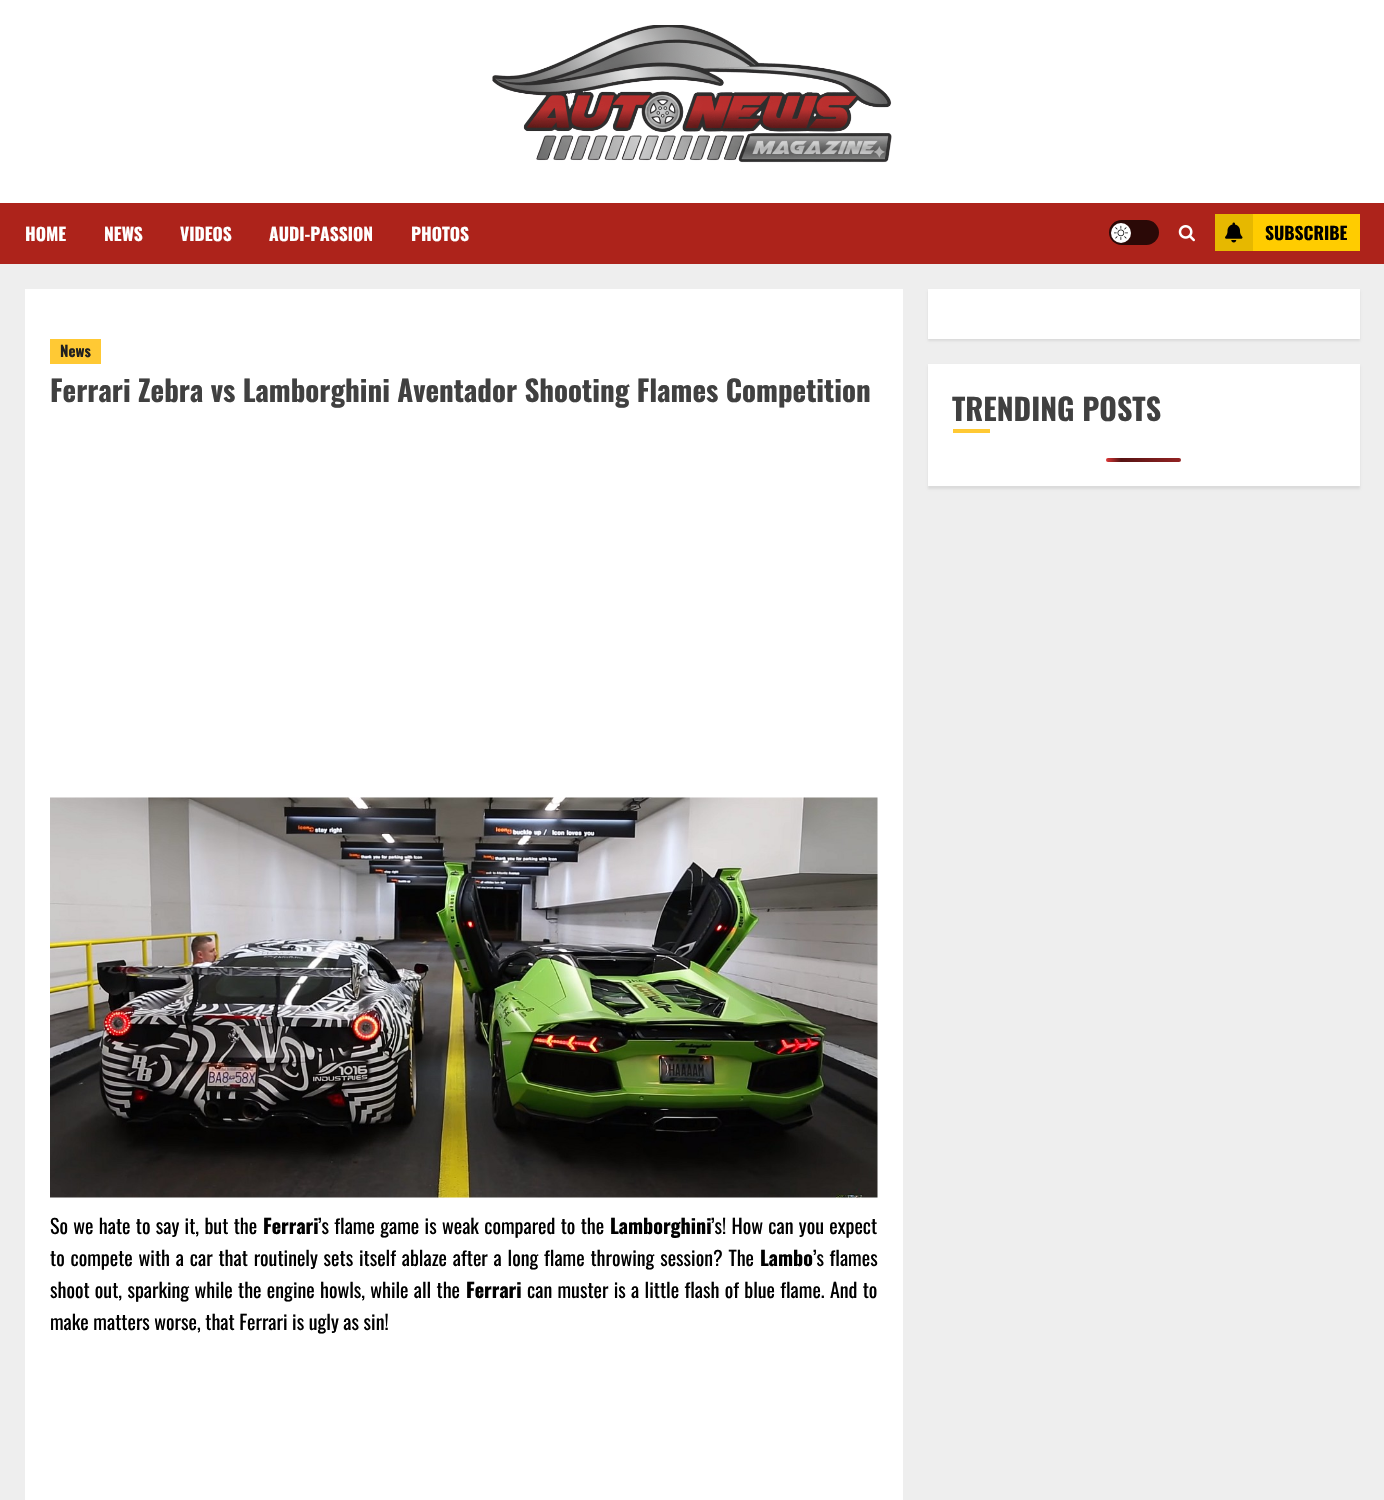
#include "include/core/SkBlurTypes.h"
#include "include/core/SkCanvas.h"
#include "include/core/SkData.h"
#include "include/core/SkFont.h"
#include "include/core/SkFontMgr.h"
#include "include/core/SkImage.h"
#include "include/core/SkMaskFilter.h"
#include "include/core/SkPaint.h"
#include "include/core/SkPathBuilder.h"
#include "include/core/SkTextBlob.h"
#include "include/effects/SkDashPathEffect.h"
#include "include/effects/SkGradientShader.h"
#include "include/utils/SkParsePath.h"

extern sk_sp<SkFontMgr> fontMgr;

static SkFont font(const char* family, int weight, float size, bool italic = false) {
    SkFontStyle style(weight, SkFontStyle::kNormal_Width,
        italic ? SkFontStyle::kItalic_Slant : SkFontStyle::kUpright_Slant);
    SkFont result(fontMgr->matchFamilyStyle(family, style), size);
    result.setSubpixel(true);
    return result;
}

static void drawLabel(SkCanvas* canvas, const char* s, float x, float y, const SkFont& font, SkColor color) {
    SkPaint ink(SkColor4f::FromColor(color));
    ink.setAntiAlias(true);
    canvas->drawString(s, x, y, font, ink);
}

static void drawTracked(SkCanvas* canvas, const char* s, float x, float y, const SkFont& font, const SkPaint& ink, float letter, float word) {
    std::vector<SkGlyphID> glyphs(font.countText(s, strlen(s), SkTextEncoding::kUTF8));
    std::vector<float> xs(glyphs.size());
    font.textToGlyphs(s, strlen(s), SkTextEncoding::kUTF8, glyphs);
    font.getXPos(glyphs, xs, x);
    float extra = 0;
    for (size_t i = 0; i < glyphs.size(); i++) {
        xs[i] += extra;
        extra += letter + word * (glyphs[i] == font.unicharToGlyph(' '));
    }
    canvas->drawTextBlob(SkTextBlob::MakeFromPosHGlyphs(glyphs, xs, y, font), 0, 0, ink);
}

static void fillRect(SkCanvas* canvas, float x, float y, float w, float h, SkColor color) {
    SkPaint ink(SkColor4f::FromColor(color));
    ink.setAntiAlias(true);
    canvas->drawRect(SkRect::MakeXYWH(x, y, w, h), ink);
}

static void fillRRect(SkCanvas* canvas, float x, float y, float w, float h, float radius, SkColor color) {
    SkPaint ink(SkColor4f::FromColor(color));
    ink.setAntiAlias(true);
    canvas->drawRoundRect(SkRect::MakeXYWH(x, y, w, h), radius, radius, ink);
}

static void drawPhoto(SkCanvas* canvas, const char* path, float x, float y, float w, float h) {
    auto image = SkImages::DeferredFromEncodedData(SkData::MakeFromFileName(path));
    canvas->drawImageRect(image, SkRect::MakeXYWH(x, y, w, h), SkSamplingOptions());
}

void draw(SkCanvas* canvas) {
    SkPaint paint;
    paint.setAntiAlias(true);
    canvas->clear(0xFFEEEEEE);
    fillRect(canvas, 0, 0, 1384, 203, 0xFFFFFFFF);
    drawPhoto(canvas, "assets/img1.png", 492, 25, 400, 138);
    fillRect(canvas, 0, 203, 1384, 61, 0xFFAD231B);
    SkFont font1 = font("Oswald", 700, 17.5f);
    drawLabel(canvas, "HOME", 25, 241, font1, 0xFFFFFFFF);
    drawLabel(canvas, "NEWS", 104, 241, font1, 0xFFFFFFFF);
    drawLabel(canvas, "VIDEOS", 180, 241, font1, 0xFFFFFFFF);
    drawLabel(canvas, "AUDI-PASSION", 269, 241, font1, 0xFFFFFFFF);
    drawLabel(canvas, "PHOTOS", 411, 241, font1, 0xFFFFFFFF);
    fillRRect(canvas, 1109, 220, 50, 25, 12.5f, 0xFF2B0907);
    paint.setColor(0xFFFFFFFF);
    canvas->drawCircle(1121, 233, 10, paint);
    drawPhoto(canvas, "assets/img2.png", 1114, 225, 14, 15);
    drawPhoto(canvas, "assets/img3.png", 1178, 225, 17, 17);
    fillRect(canvas, 1253, 214, 107, 37, 0xFFFFCC00);
    fillRect(canvas, 1215, 214, 38, 37, 0xFFE6B800);
    drawPhoto(canvas, "assets/img4.png", 1225, 222, 18, 21);
    drawLabel(canvas, "SUBSCRIBE", 1265, 240, font1, 0xFF000000);
    fillRect(canvas, 25, 289, 878, 1211, 0xFFFFFFFF);
    fillRect(canvas, 50, 339, 51, 25, 0xFFFFC934);
    SkFont font2 = font("Oswald", 700, 15);
    drawLabel(canvas, "News", 60, 357, font2, 0xFF202020);
    SkFont font3 = font("Oswald", 700, 29);
    drawLabel(canvas, "Ferrari Zebra vs Lamborghini Aventador Shooting Flames Competition", 50, 402, font3, 0xFF404040);
    drawPhoto(canvas, "assets/img5.png", 50, 797, 828, 401);
    SkFont font4 = font("Oswald", 400, 20);
    paint.setColor(0xFF000000);
    drawTracked(canvas, "So we hate to say it, but the", 50, 1234, font4, paint, 0, 0.75f);
    SkFont font5 = font("Oswald", 700, 20);
    drawLabel(canvas, "Ferrari", 263, 1234, font5, 0xFF000000);
    drawTracked(canvas, "’s flame game is weak compared to the", 318, 1234, font4, paint, 0, 0.75f);
    drawLabel(canvas, "Lamborghini", 610, 1234, font5, 0xFF000000);
    drawTracked(canvas, "’s! How can you expect", 711, 1234, font4, paint, 0, 0.75f);
    drawTracked(canvas, "to compete with a car that routinely sets itself ablaze after a long flame throwing session? The", 50, 1266, font4, paint, 0, 1.25f);
    drawLabel(canvas, "Lambo", 760, 1266, font5, 0xFF000000);
    drawTracked(canvas, "’s flames", 813, 1266, font4, paint, 0, 1);
    drawTracked(canvas, "shoot out, sparking while the engine howls, while all the", 50, 1298, font4, paint, 0, 0.75f);
    drawLabel(canvas, "Ferrari", 466, 1298, font5, 0xFF000000);
    drawTracked(canvas, "can muster is a little flash of blue flame. And to", 527, 1298, font4, paint, 0, 0.75f);
    drawLabel(canvas, "make matters worse, that Ferrari is ugly as sin!", 50, 1330, font4, 0xFF000000);
    paint.setColor(0x14000000);
    paint.setMaskFilter(SkMaskFilter::MakeBlur(kNormal_SkBlurStyle, 1));
    canvas->drawRect(SkRect::MakeXYWH(928, 291, 432, 50), paint);
    paint.setMaskFilter(nullptr);
    fillRect(canvas, 928, 289, 432, 50, 0xFFFFFFFF);
    paint.setMaskFilter(SkMaskFilter::MakeBlur(kNormal_SkBlurStyle, 1));
    canvas->drawRect(SkRect::MakeXYWH(928, 366, 432, 123), paint);
    paint.setMaskFilter(nullptr);
    fillRect(canvas, 928, 364, 432, 122, 0xFFFFFFFF);
    SkFont font6 = font("Oswald", 700, 30);
    drawLabel(canvas, "TRENDING POSTS", 952, 421, font6, 0xFF404040);
    fillRect(canvas, 953, 429, 37, 4, 0xFFFFC934);
    {
        const SkColor colors[] = {0xFFDD3737, 0xFF571313, 0xFFDD3737};
        const float stops[] = {0, 0.1f, 1};
        const SkPoint ends[] = {{1106, 459}, {1256, 459}};
        paint.setShader(SkGradientShader::MakeLinear(ends, colors, stops, 3, SkTileMode::kClamp));
        paint.setAlpha(255);
    }
    canvas->drawRoundRect(SkRect::MakeXYWH(1106, 458, 75, 4), 2, 2, paint);
}
